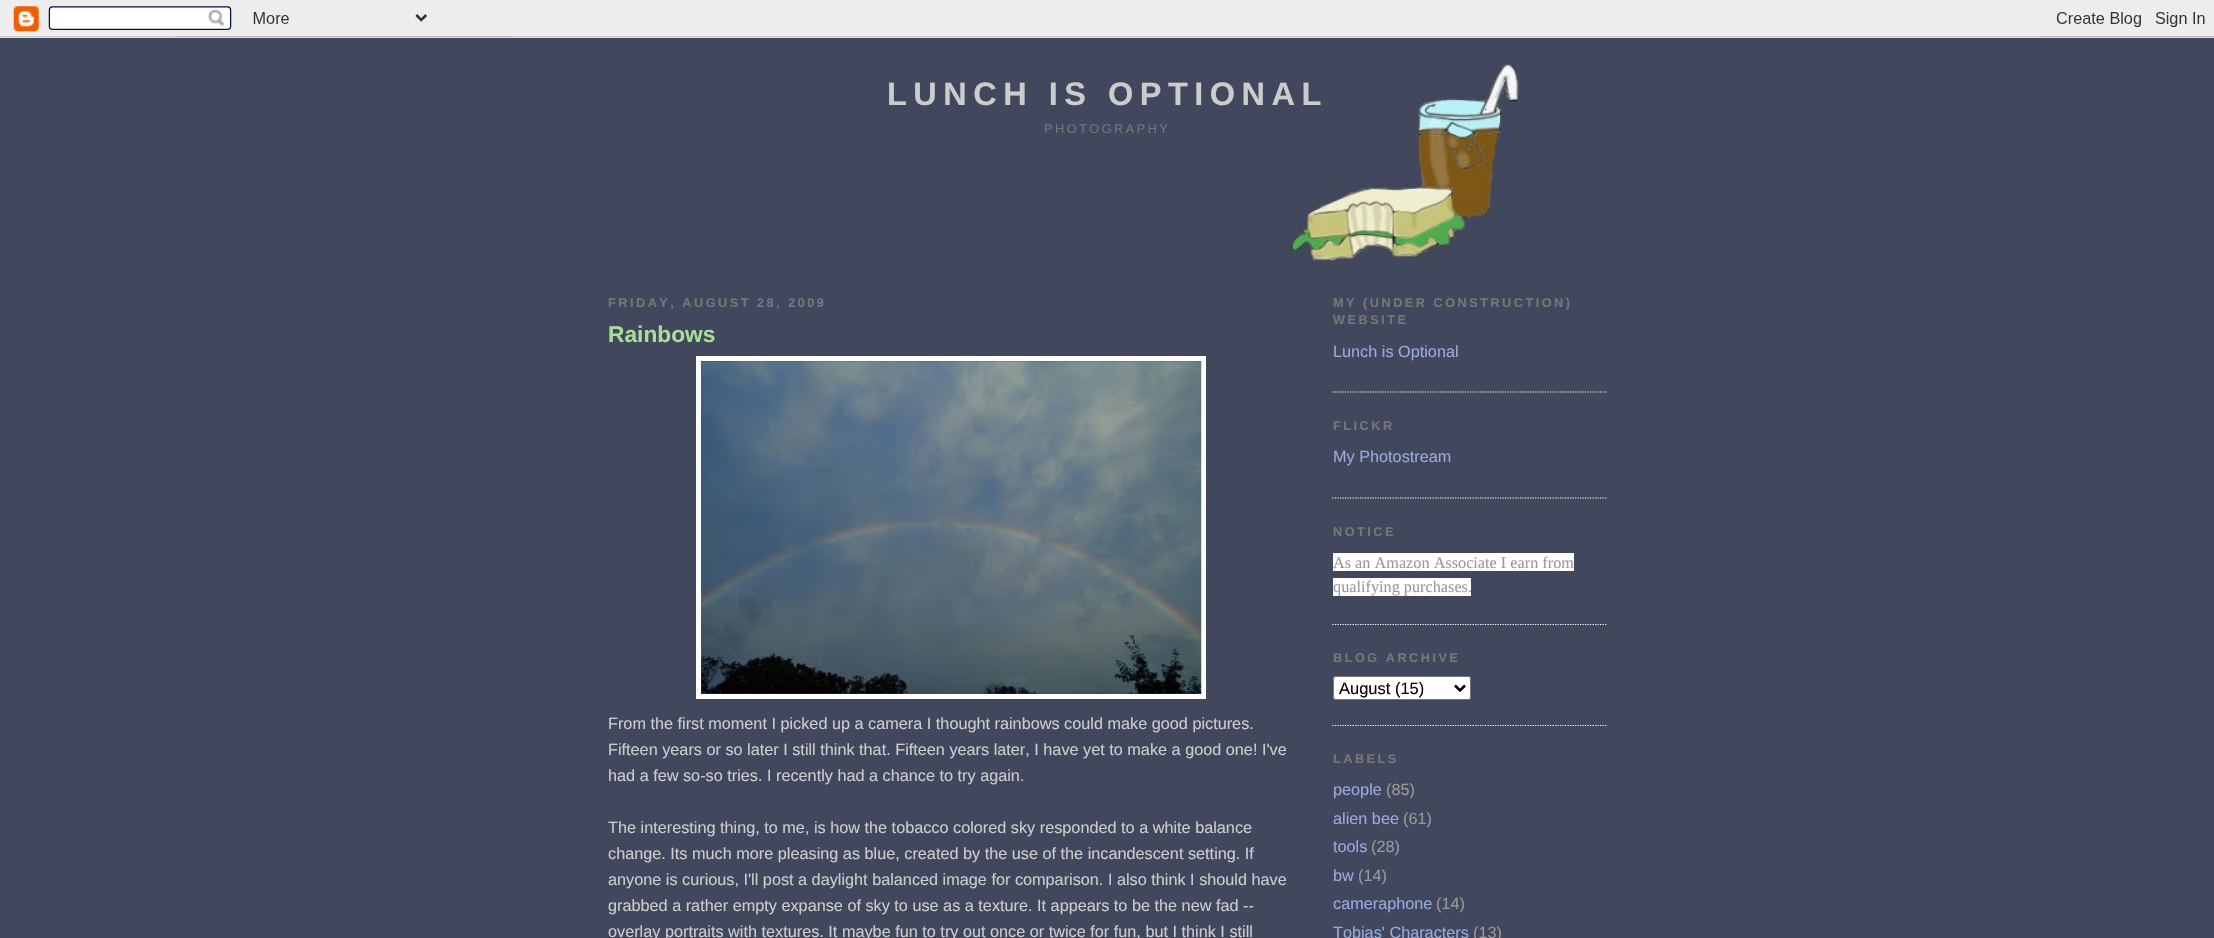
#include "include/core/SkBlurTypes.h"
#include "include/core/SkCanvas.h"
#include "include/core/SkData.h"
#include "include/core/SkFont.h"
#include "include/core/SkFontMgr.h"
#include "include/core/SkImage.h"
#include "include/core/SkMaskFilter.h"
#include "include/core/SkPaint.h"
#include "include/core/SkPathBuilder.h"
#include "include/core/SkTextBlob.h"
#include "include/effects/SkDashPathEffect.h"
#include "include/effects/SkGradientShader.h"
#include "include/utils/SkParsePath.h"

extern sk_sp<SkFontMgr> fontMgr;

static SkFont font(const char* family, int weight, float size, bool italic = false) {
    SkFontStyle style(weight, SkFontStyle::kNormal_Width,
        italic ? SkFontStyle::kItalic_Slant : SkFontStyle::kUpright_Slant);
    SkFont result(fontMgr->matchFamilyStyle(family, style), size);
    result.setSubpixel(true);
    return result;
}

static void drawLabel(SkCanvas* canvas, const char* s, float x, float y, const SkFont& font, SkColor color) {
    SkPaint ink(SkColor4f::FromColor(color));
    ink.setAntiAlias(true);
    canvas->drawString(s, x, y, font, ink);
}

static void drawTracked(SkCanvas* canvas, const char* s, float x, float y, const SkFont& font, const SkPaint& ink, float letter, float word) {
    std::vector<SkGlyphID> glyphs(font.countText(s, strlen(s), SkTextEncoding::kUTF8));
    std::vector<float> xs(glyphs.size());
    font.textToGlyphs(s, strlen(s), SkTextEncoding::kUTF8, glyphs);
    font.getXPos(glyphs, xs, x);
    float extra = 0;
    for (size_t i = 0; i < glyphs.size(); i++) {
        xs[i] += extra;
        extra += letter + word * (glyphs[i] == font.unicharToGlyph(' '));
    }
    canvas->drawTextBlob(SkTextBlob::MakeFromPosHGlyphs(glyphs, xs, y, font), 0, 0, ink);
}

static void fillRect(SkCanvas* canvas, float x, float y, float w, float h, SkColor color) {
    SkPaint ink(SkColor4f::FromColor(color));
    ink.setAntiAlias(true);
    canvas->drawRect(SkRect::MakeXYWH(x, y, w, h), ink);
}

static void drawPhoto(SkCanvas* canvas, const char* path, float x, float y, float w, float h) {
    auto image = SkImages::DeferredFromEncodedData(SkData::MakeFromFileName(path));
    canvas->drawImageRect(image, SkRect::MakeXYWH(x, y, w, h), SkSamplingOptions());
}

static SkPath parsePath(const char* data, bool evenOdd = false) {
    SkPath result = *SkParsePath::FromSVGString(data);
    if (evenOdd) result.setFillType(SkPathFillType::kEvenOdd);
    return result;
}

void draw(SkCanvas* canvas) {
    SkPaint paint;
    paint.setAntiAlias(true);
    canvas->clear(0xFF41485E);
    drawPhoto(canvas, "assets/img1.png", 0, 0, 2214, 38);
    drawPhoto(canvas, "assets/img2.png", 1274, 56, 246, 207);
    SkFont font1 = font("Liberation Sans", 700, 32.5f);
    paint.setColor(0xFFCCCCCC);
    drawTracked(canvas, "LUNCH IS OPTIONAL", 887, 105, font1, paint, 6.5f, 0);
    SkFont font2 = font("Liberation Sans", 400, 12.7f);
    paint.setColor(0xFF777777);
    drawTracked(canvas, "PHOTOGRAPHY", 1044, 133, font2, paint, 2.5f, 0);
    SkFont font3 = font("Liberation Sans", 700, 12.7f);
    drawTracked(canvas, "FRIDAY, AUGUST 28, 2009", 608, 307, font3, paint, 2.5f, 0);
    SkFont font4 = font("Liberation Sans", 700, 22.75f);
    drawLabel(canvas, "Rainbows", 608, 342, font4, 0xFFAADD99);
    paint.setStroke(true);
    paint.setStrokeWidth(5);
    paint.setColor(0xFFFFFFFF);
    canvas->drawRect(SkRect::MakeXYWH(698.5f, 358.5f, 505, 338), paint);
    drawPhoto(canvas, "assets/img3.png", 701, 361, 501, 333);
    SkFont font5 = font("Liberation Sans", 400, 16.25f);
    drawLabel(canvas, "From the first moment I picked up a camera I thought rainbows could make good pictures.", 608, 729, font5, 0xFFCCCCCC);
    drawLabel(canvas, "Fifteen years or so later I still think that. Fifteen years later, I have yet to make a good one! I've", 608, 755, font5, 0xFFCCCCCC);
    drawLabel(canvas, "had a few so-so tries. I recently had a chance to try again.", 608, 781, font5, 0xFFCCCCCC);
    drawLabel(canvas, "The interesting thing, to me, is how the tobacco colored sky responded to a white balance", 608, 833, font5, 0xFFCCCCCC);
    drawLabel(canvas, "change. Its much more pleasing as blue, created by the use of the incandescent setting. If", 608, 859, font5, 0xFFCCCCCC);
    drawLabel(canvas, "anyone is curious, I'll post a daylight balanced image for comparison. I also think I should have", 608, 885, font5, 0xFFCCCCCC);
    drawLabel(canvas, "grabbed a rather empty expanse of sky to use as a texture. It appears to be the new fad --", 608, 911, font5, 0xFFCCCCCC);
    drawLabel(canvas, "overlay portraits with textures. It maybe fun to try out once or twice for fun, but I think I still", 608, 937, font5, 0xFFCCCCCC);
    paint.setStrokeWidth(1.2f);
    paint.setPathEffect(SkDashPathEffect::Make({{1.25f, 1.25f}}, 0));
    canvas->drawPath(parsePath("M1332.5 392H1607.5"), paint);
    paint.setPathEffect(nullptr);
    paint.setStroke(false);
    paint.setColor(0xFF777777);
    drawTracked(canvas, "MY (UNDER CONSTRUCTION)", 1333, 307, font3, paint, 2.5f, 0);
    drawTracked(canvas, "WEBSITE", 1333, 324, font3, paint, 2.5f, 0);
    drawLabel(canvas, "Lunch is Optional", 1333, 357, font5, 0xFF99AADD);
    paint.setStroke(true);
    paint.setColor(0xFFFFFFFF);
    paint.setPathEffect(SkDashPathEffect::Make({{1.25f, 1.25f}}, 0));
    canvas->drawPath(parsePath("M1332.5 498H1607.5"), paint);
    paint.setPathEffect(nullptr);
    paint.setStroke(false);
    paint.setColor(0xFF777777);
    drawTracked(canvas, "FLICKR", 1333, 430, font3, paint, 2.5f, 0);
    drawLabel(canvas, "My Photostream", 1333, 462, font5, 0xFF99AADD);
    paint.setStroke(true);
    paint.setColor(0xFFFFFFFF);
    paint.setPathEffect(SkDashPathEffect::Make({{1.25f, 1.25f}}, 0));
    canvas->drawPath(parsePath("M1332.5 624.5H1607.5"), paint);
    paint.setPathEffect(nullptr);
    paint.setStroke(false);
    paint.setColor(0xFF777777);
    drawTracked(canvas, "NOTICE", 1333, 536, font3, paint, 2.5f, 0);
    fillRect(canvas, 1333, 553, 241, 18, 0xFFFFFFFF);
    SkFont font6 = font("Liberation Serif", 400, 16.25f);
    drawLabel(canvas, "As an Amazon Associate I earn from", 1333, 568, font6, 0xFF999999);
    fillRect(canvas, 1333, 578, 138, 18, 0xFFFFFFFF);
    drawLabel(canvas, "qualifying purchases.", 1333, 592, font6, 0xFF999999);
    paint.setStroke(true);
    paint.setColor(0xFFFFFFFF);
    paint.setPathEffect(SkDashPathEffect::Make({{1.25f, 1.25f}}, 0));
    canvas->drawPath(parsePath("M1332.5 725.5H1607.5"), paint);
    paint.setPathEffect(nullptr);
    paint.setStroke(false);
    paint.setColor(0xFF777777);
    drawTracked(canvas, "BLOG ARCHIVE", 1333, 662, font3, paint, 2.5f, 0);
    paint.setColor(0xFFFFFFFF);
    canvas->drawRoundRect(SkRect::MakeXYWH(1333.5f, 676.5f, 137, 23), 2, 2, paint);
    paint.setStroke(true);
    paint.setStrokeWidth(1);
    paint.setColor(0xFF767676);
    canvas->drawRoundRect(SkRect::MakeXYWH(1333.5f, 676.5f, 137, 23), 2, 2, paint);
    paint.setStrokeWidth(2.5f);
    paint.setColor(0xFF000000);
    canvas->drawPath(parsePath("M1455 685.5L1460 690.5L1465 685.5"), paint);
    SkFont font7 = font("Liberation Sans", 400, 16.5f);
    drawLabel(canvas, "August (15)", 1339, 694, font7, 0xFF000000);
    paint.setStroke(false);
    paint.setColor(0xFF777777);
    drawTracked(canvas, "LABELS", 1333, 763, font3, paint, 2.5f, 0);
    drawLabel(canvas, "people", 1333, 795, font5, 0xFF99AADD);
    drawLabel(canvas, "(85)", 1386, 795, font5, 0xFF999999);
    drawLabel(canvas, "alien bee", 1333, 824, font5, 0xFF99AADD);
    drawLabel(canvas, "(61)", 1403, 824, font5, 0xFF999999);
    drawLabel(canvas, "tools", 1333, 852, font5, 0xFF99AADD);
    drawLabel(canvas, "(28)", 1371, 852, font5, 0xFF999999);
    drawLabel(canvas, "bw", 1333, 881, font5, 0xFF99AADD);
    drawLabel(canvas, "(14)", 1358, 881, font5, 0xFF999999);
    drawLabel(canvas, "cameraphone", 1333, 909, font5, 0xFF99AADD);
    drawLabel(canvas, "(14)", 1436, 909, font5, 0xFF999999);
    drawLabel(canvas, "Tobias' Characters", 1333, 938, font5, 0xFF99AADD);
    drawLabel(canvas, "(13)", 1473, 938, font5, 0xFF999999);
}
